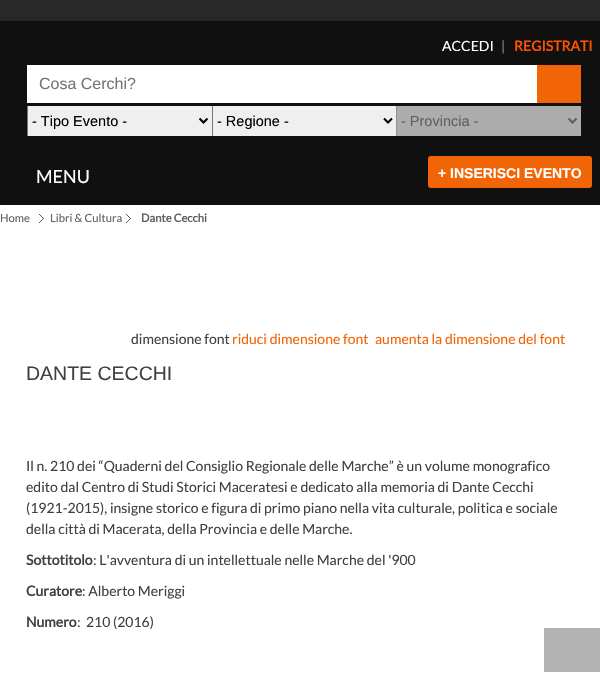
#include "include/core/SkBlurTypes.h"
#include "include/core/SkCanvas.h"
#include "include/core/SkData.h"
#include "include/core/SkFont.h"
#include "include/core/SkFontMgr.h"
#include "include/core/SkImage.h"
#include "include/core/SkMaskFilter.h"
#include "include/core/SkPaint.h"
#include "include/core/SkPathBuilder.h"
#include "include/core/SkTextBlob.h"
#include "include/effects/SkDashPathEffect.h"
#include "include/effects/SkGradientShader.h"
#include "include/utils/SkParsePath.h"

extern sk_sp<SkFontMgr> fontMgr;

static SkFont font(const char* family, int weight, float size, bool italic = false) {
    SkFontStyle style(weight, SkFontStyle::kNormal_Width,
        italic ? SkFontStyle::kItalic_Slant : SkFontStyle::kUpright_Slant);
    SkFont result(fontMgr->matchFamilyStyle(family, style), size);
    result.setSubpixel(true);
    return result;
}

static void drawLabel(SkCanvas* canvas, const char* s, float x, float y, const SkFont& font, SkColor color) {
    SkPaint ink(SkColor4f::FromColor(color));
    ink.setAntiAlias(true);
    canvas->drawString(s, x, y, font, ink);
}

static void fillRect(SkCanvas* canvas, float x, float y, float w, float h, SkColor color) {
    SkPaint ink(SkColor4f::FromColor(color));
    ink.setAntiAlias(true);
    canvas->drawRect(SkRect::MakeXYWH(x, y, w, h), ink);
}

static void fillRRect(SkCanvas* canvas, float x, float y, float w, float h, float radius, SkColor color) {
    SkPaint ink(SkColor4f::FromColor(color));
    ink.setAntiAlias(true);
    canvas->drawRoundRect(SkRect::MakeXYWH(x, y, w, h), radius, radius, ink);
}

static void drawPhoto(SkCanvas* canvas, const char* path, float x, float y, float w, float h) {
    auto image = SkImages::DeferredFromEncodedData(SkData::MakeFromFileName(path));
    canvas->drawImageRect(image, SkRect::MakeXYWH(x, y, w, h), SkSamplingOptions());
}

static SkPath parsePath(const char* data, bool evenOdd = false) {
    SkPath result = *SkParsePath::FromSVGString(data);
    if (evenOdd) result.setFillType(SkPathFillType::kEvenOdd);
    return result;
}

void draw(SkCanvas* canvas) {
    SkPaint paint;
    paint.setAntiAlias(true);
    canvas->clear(0xFFFFFFFF);
    fillRect(canvas, 0, 0, 600, 21, 0xFF282828);
    fillRect(canvas, 0, 21, 600, 184, 0xFF101010);
    SkFont font1 = font("Lato", 400, 14);
    drawLabel(canvas, "ACCEDI", 442, 51, font1, 0xFFFFFFFF);
    drawLabel(canvas, "|", 501, 51, font1, 0xFF888888);
    SkFont font2 = font("Lato", 700, 14);
    drawLabel(canvas, "REGISTRATI", 514, 51, font2, 0xFFFD5200);
    fillRect(canvas, 27, 65, 510, 38, 0xFFFFFFFF);
    SkFont font3 = font("Liberation Sans", 400, 16);
    drawLabel(canvas, "Cosa Cerchi?", 39, 89, font3, 0xFF757575);
    fillRect(canvas, 537, 65, 44, 38, 0xFFF26506);
    fillRect(canvas, 28, 106, 184, 30, 0xFFEFEFEF);
    fillRect(canvas, 27, 106, 1, 30, 0xFF767676);
    paint.setStroke(true);
    paint.setStrokeWidth(2);
    paint.setColor(0xFF000000);
    canvas->drawPath(parsePath("M199.5 118.5L203.5 122.5L207.5 118.5"), paint);
    SkFont font4 = font("Liberation Sans", 400, 14.5f);
    drawLabel(canvas, "- Tipo Evento -", 32, 126, font4, 0xFF000000);
    fillRect(canvas, 213, 106, 183, 30, 0xFFEFEFEF);
    fillRect(canvas, 212, 106, 1, 30, 0xFF767676);
    canvas->drawPath(parsePath("M384 118.5L388 122.5L392 118.5"), paint);
    drawLabel(canvas, "- Regione -", 217, 126, font4, 0xFF000000);
    fillRect(canvas, 397, 106, 184, 30, 0xFFACACAC);
    fillRect(canvas, 396, 106, 1, 30, 0xFF939393);
    paint.setColor(0xFF5E5E5E);
    canvas->drawPath(parsePath("M568.5 118.5L572.5 122.5L576.5 118.5"), paint);
    drawLabel(canvas, "- Provincia -", 401, 126, font4, 0xFF606060);
    SkFont font5 = font("Lato", 400, 18);
    drawLabel(canvas, "MENU", 36, 183, font5, 0xFFFFFFFF);
    fillRRect(canvas, 428, 156, 164, 32, 3, 0xFFF26506);
    SkFont font6 = font("Liberation Sans", 700, 14);
    drawLabel(canvas, "+ INSERISCI EVENTO", 438, 178, font6, 0xFFFFFFFF);
    drawPhoto(canvas, "assets/img1.png", 39, 214, 5, 9);
    SkFont font7 = font("Lato", 400, 11.25f);
    drawLabel(canvas, "Home", 0, 222, font7, 0xFF606060);
    drawPhoto(canvas, "assets/img1.png", 126, 214, 5, 9);
    drawLabel(canvas, "Libri & Cultura", 50, 222, font7, 0xFF606060);
    SkFont font8 = font("Lato", 700, 11.25f);
    drawLabel(canvas, "Dante Cecchi", 141, 222, font8, 0xFF606060);
    drawLabel(canvas, "dimensione font", 131, 344, font1, 0xFF404040);
    drawLabel(canvas, "riduci dimensione font", 232, 344, font1, 0xFFF26506);
    drawLabel(canvas, "aumenta la dimensione del font", 375, 344, font1, 0xFFF26506);
    SkFont font9 = font("Liberation Sans", 400, 19.5f);
    drawLabel(canvas, "DANTE CECCHI", 26, 380, font9, 0xFF404040);
    drawLabel(canvas, "Il n. 210 dei “Quaderni del Consiglio Regionale delle Marche” è un volume monografico", 26, 471, font1, 0xFF404040);
    drawLabel(canvas, "edito dal Centro di Studi Storici Maceratesi e dedicato alla memoria di Dante Cecchi", 26, 492, font1, 0xFF404040);
    drawLabel(canvas, "(1921-2015), insigne storico e figura di primo piano nella vita culturale, politica e sociale", 26, 513, font1, 0xFF404040);
    drawLabel(canvas, "della città di Macerata, della Provincia e delle Marche.", 26, 534, font1, 0xFF404040);
    drawLabel(canvas, "Sottotitolo", 26, 565, font2, 0xFF404040);
    drawLabel(canvas, ": L'avventura di un intellettuale nelle Marche del '900", 93, 565, font1, 0xFF404040);
    drawLabel(canvas, "Curatore", 26, 596, font2, 0xFF404040);
    drawLabel(canvas, ": Alberto Meriggi", 82, 596, font1, 0xFF404040);
    drawLabel(canvas, "Numero", 26, 627, font2, 0xFF404040);
    drawLabel(canvas, ":  210 (2016)", 77, 627, font1, 0xFF404040);
    fillRect(canvas, 544, 628, 56, 44, 0xFFB2B2B2);
}
